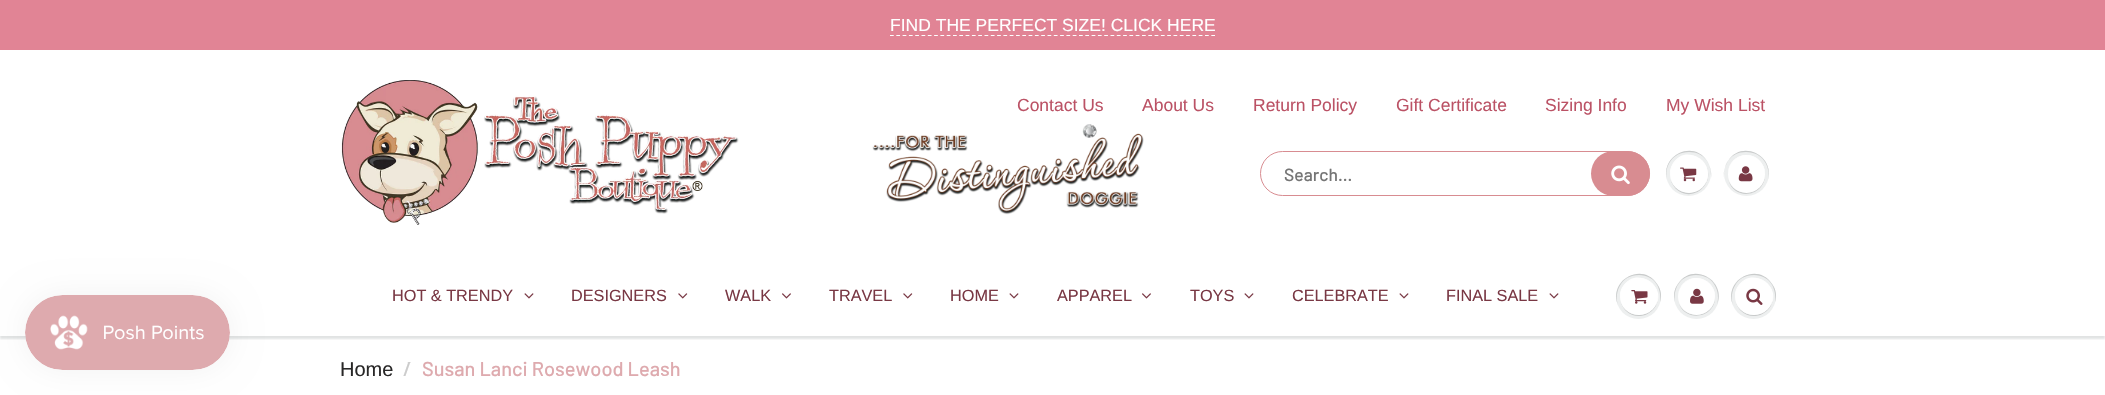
#include "include/core/SkBlurTypes.h"
#include "include/core/SkCanvas.h"
#include "include/core/SkData.h"
#include "include/core/SkFont.h"
#include "include/core/SkFontMgr.h"
#include "include/core/SkImage.h"
#include "include/core/SkMaskFilter.h"
#include "include/core/SkPaint.h"
#include "include/core/SkPathBuilder.h"
#include "include/core/SkTextBlob.h"
#include "include/effects/SkDashPathEffect.h"
#include "include/effects/SkGradientShader.h"
#include "include/utils/SkParsePath.h"

extern sk_sp<SkFontMgr> fontMgr;

static SkFont font(const char* family, int weight, float size, bool italic = false) {
    SkFontStyle style(weight, SkFontStyle::kNormal_Width,
        italic ? SkFontStyle::kItalic_Slant : SkFontStyle::kUpright_Slant);
    SkFont result(fontMgr->matchFamilyStyle(family, style), size);
    result.setSubpixel(true);
    return result;
}

static void drawLabel(SkCanvas* canvas, const char* s, float x, float y, const SkFont& font, SkColor color) {
    SkPaint ink(SkColor4f::FromColor(color));
    ink.setAntiAlias(true);
    canvas->drawString(s, x, y, font, ink);
}

static void fillRect(SkCanvas* canvas, float x, float y, float w, float h, SkColor color) {
    SkPaint ink(SkColor4f::FromColor(color));
    ink.setAntiAlias(true);
    canvas->drawRect(SkRect::MakeXYWH(x, y, w, h), ink);
}

static void fillRRect(SkCanvas* canvas, float x, float y, float w, float h, float radius, SkColor color) {
    SkPaint ink(SkColor4f::FromColor(color));
    ink.setAntiAlias(true);
    canvas->drawRoundRect(SkRect::MakeXYWH(x, y, w, h), radius, radius, ink);
}

static void drawPhoto(SkCanvas* canvas, const char* path, float x, float y, float w, float h) {
    auto image = SkImages::DeferredFromEncodedData(SkData::MakeFromFileName(path));
    canvas->drawImageRect(image, SkRect::MakeXYWH(x, y, w, h), SkSamplingOptions());
}

static SkPath parsePath(const char* data, bool evenOdd = false) {
    SkPath result = *SkParsePath::FromSVGString(data);
    if (evenOdd) result.setFillType(SkPathFillType::kEvenOdd);
    return result;
}

void draw(SkCanvas* canvas) {
    SkPaint paint;
    paint.setAntiAlias(true);
    canvas->clear(0xFFFFFFFF);
    paint.setColor(0x0D000000);
    paint.setMaskFilter(SkMaskFilter::MakeBlur(kNormal_SkBlurStyle, 15.5f));
    canvas->drawRoundRect(SkRect::MakeXYWH(25, 295, 205, 75), 37.5f, 37.5f, paint);
    paint.setMaskFilter(nullptr);
    canvas->save();
    canvas->clipRect(SkRect::MakeXYWH(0, 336, 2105, 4));
    paint.setColor(0x1F0B191C);
    paint.setMaskFilter(SkMaskFilter::MakeBlur(kNormal_SkBlurStyle, 1));
    canvas->drawRect(SkRect::MakeXYWH(0, 258, 2105, 81), paint);
    paint.setMaskFilter(nullptr);
    canvas->restore();
    drawPhoto(canvas, "assets/img1.png", 25, 295, 205, 75);
    fillRect(canvas, 0, 0, 2105, 50, 0xFFE18495);
    SkFont font1 = font("Liberation Sans", 400, 17.5f);
    drawLabel(canvas, "FIND THE PERFECT SIZE! CLICK HERE", 890, 31, font1, 0xFFFFFFFF);
    paint.setStroke(true);
    paint.setStrokeWidth(1.2f);
    paint.setColor(0xFFFFFFFF);
    paint.setPathEffect(SkDashPathEffect::Make({{3.75f, 2.55f}}, 0));
    canvas->drawPath(parsePath("M890 35.5H1215"), paint);
    paint.setPathEffect(nullptr);
    drawPhoto(canvas, "assets/img2.png", 341, 80, 398, 145);
    drawLabel(canvas, "Contact Us", 1017, 111, font1, 0xFFBB5265);
    drawLabel(canvas, "About Us", 1142, 111, font1, 0xFFBB5265);
    drawLabel(canvas, "Return Policy", 1253, 111, font1, 0xFFBB5265);
    drawLabel(canvas, "Gift Certificate", 1396, 111, font1, 0xFFBB5265);
    drawLabel(canvas, "Sizing Info", 1545, 111, font1, 0xFFBB5265);
    drawLabel(canvas, "My Wish List", 1666, 111, font1, 0xFFBB5265);
    drawPhoto(canvas, "assets/img3.png", 872, 124, 272, 91);
    paint.setStrokeWidth(1);
    paint.setColor(0xFFD88C91);
    canvas->drawRoundRect(SkRect::MakeXYWH(1260.5f, 151.5f, 389, 44), 22, 22, paint);
    SkFont font2 = font("Barlow", 500, 17.5f);
    drawLabel(canvas, "Search...", 1284, 181, font2, 0xFF757575);
    fillRRect(canvas, 1591, 151, 59, 45, 22.5f, 0xFFD88C91);
    drawPhoto(canvas, "assets/img4.png", 1611, 165, 19, 20);
    paint.setStroke(false);
    paint.setColor(0xFFEDEFEF);
    canvas->drawCircle(1688.5f, 173.5f, 22.5f, paint);
    paint.setColor(0xFFC9CBCB);
    canvas->drawPath(parsePath("M1689 152C1705 152 1712 165 1711 178C1712 172 1710 166 1707 161C1693 139 1660 156 1667 180C1664 167 1672 152 1689 152Z"), paint);
    canvas->drawPath(parsePath("M1670 174.5C1670 179.5 1672 184.5 1675.5 188.5C1690.5 203.5 1715 186 1706.5 167C1713 185.5 1690 201.5 1675.5 187C1672 184 1670 179 1670 174.5Z"), paint);
    paint.setColor(0xFFFFFFFF);
    canvas->drawCircle(1689, 174, 19, paint);
    canvas->drawPath(parsePath("M1689 156C1705 156 1710 173 1705 185C1718 164 1687 142 1673 163C1670 168 1669 173 1671 178C1669 168 1675 156 1689 156Z"), paint);
    drawPhoto(canvas, "assets/img5.png", 1680, 167, 17, 15);
    paint.setColor(0xFFEDEFEF);
    canvas->drawCircle(1746.5f, 173.5f, 22.5f, paint);
    paint.setColor(0xFFC9CBCB);
    canvas->drawPath(parsePath("M1746 152C1763 152 1771 167 1768 180C1775 156 1742 139 1728 161C1725 166 1723 172 1724 178C1723 165 1730 152 1746 152Z"), paint);
    canvas->drawPath(parsePath("M1728.5 180C1733.5 201 1765.5 197.5 1765 174C1764.5 195 1735 199.5 1728.5 180Z"), paint);
    fillRRect(canvas, 1728, 155, 37, 38, 18.5f, 0xFFFFFFFF);
    paint.setColor(0xFFFFFFFF);
    canvas->drawPath(parsePath("M1746 156C1761 156 1767 169.5 1764 180C1765.5 175.5 1765.5 170.5 1763.5 166.5C1755.5 147.5 1727.5 153 1728 174.5C1728 165.5 1734 156 1746 156Z"), paint);
    drawPhoto(canvas, "assets/img6.png", 1738, 166, 15, 16);
    SkFont font3 = font("Liberation Sans", 400, 16.25f);
    drawLabel(canvas, "HOT & TRENDY", 392, 301, font3, 0xFF793844);
    drawPhoto(canvas, "assets/img7.png", 524, 293, 10, 6);
    drawLabel(canvas, "DESIGNERS", 571, 301, font3, 0xFF793844);
    drawPhoto(canvas, "assets/img8.png", 678, 293, 10, 6);
    drawLabel(canvas, "WALK", 725, 301, font3, 0xFF793844);
    drawPhoto(canvas, "assets/img9.png", 782, 293, 9, 6);
    drawLabel(canvas, "TRAVEL", 829, 301, font3, 0xFF793844);
    drawPhoto(canvas, "assets/img8.png", 903, 293, 10, 6);
    drawLabel(canvas, "HOME", 950, 301, font3, 0xFF793844);
    drawPhoto(canvas, "assets/img7.png", 1009, 293, 10, 6);
    drawLabel(canvas, "APPAREL", 1057, 301, font3, 0xFF793844);
    drawPhoto(canvas, "assets/img9.png", 1142, 293, 9, 6);
    drawLabel(canvas, "TOYS", 1190, 301, font3, 0xFF793844);
    drawPhoto(canvas, "assets/img7.png", 1244, 293, 10, 6);
    drawLabel(canvas, "CELEBRATE", 1292, 301, font3, 0xFF793844);
    drawPhoto(canvas, "assets/img7.png", 1399, 293, 10, 6);
    drawLabel(canvas, "FINAL SALE", 1446, 301, font3, 0xFF793844);
    drawPhoto(canvas, "assets/img7.png", 1549, 293, 10, 6);
    paint.setColor(0xFFEDEFEF);
    canvas->drawCircle(1638.5f, 296.5f, 22.5f, paint);
    paint.setColor(0xFFC9CBCB);
    canvas->drawPath(parsePath("M1639 275C1655 275 1662 289 1660 302C1662 296 1661 289 1657 284C1642 261 1608 281 1618 305C1614 292 1621 275 1639 275Z"), paint);
    canvas->drawPath(parsePath("M1620 297C1620 302 1622 307 1625.5 310.5C1640 325 1664.5 309 1656.5 290C1662.5 308.5 1640 323.5 1625.5 309.5C1622 306.5 1620 301.5 1620 297Z"), paint);
    fillRRect(canvas, 1620, 278, 38, 37, 18.5f, 0xFFFFFFFF);
    paint.setColor(0xFFFFFFFF);
    canvas->drawPath(parsePath("M1639 279C1655 279 1661 296 1655 307C1669 287 1637 265 1623 286C1620 290 1619 296 1621 301C1619 291 1625 279 1639 279Z"), paint);
    drawPhoto(canvas, "assets/img10.png", 1631, 290, 17, 14);
    paint.setColor(0xFFEDEFEF);
    canvas->drawCircle(1696.5f, 296.5f, 22.5f, paint);
    paint.setColor(0xFFC9CBCB);
    canvas->drawPath(parsePath("M1696 275C1714 275 1721 292 1717 305C1727 281 1693 261 1678 284C1674 289 1673 296 1675 302C1673 289 1680 275 1696 275Z"), paint);
    canvas->drawPath(parsePath("M1679 304C1686.5 323 1715.5 317.5 1715 297C1714.5 316.5 1687.5 321.5 1679 304Z"), paint);
    paint.setColor(0xFFFFFFFF);
    canvas->drawCircle(1696.5f, 296.5f, 18.5f, paint);
    canvas->drawPath(parsePath("M1696 279C1710 279 1716 290.5 1714.5 301C1719.5 281.5 1693 269 1681 286C1679 289.5 1678 293 1678 297C1678 288 1684 279 1696 279Z"), paint);
    drawPhoto(canvas, "assets/img11.png", 1690, 288, 14, 16);
    paint.setColor(0xFFEDEFEF);
    canvas->drawCircle(1753.5f, 296.5f, 22.5f, paint);
    paint.setColor(0xFFC9CBCB);
    canvas->drawPath(parsePath("M1754 275C1770 275 1777 289 1775 302C1777 296 1776 289 1772 284C1757 261 1723 281 1733 305C1729 292 1736 275 1754 275Z"), paint);
    canvas->drawPath(parsePath("M1735 297C1735 302 1737 307 1740.5 310.5C1755 325 1779.5 309 1771.5 290C1777.5 308.5 1755 323.5 1740.5 309.5C1737 306.5 1735 301.5 1735 297Z"), paint);
    fillRRect(canvas, 1735, 278, 38, 37, 18.5f, 0xFFFFFFFF);
    paint.setColor(0xFFFFFFFF);
    canvas->drawPath(parsePath("M1754 279C1770 279 1776 296 1770 307C1784 287 1752 265 1738 286C1735 290 1734 296 1736 301C1734 291 1740 279 1754 279Z"), paint);
    drawPhoto(canvas, "assets/img12.png", 1746, 288, 17, 17);
    SkFont font4 = font("Liberation Sans", 400, 20);
    drawLabel(canvas, "Home", 340, 376, font4, 0xFF282727);
    SkFont font5 = font("Barlow", 500, 20);
    drawLabel(canvas, "/", 403, 376, font5, 0xFFCCCCCC);
    drawLabel(canvas, "Susan Lanci Rosewood Leash", 422, 376, font5, 0xFFDEAAAE);
}
